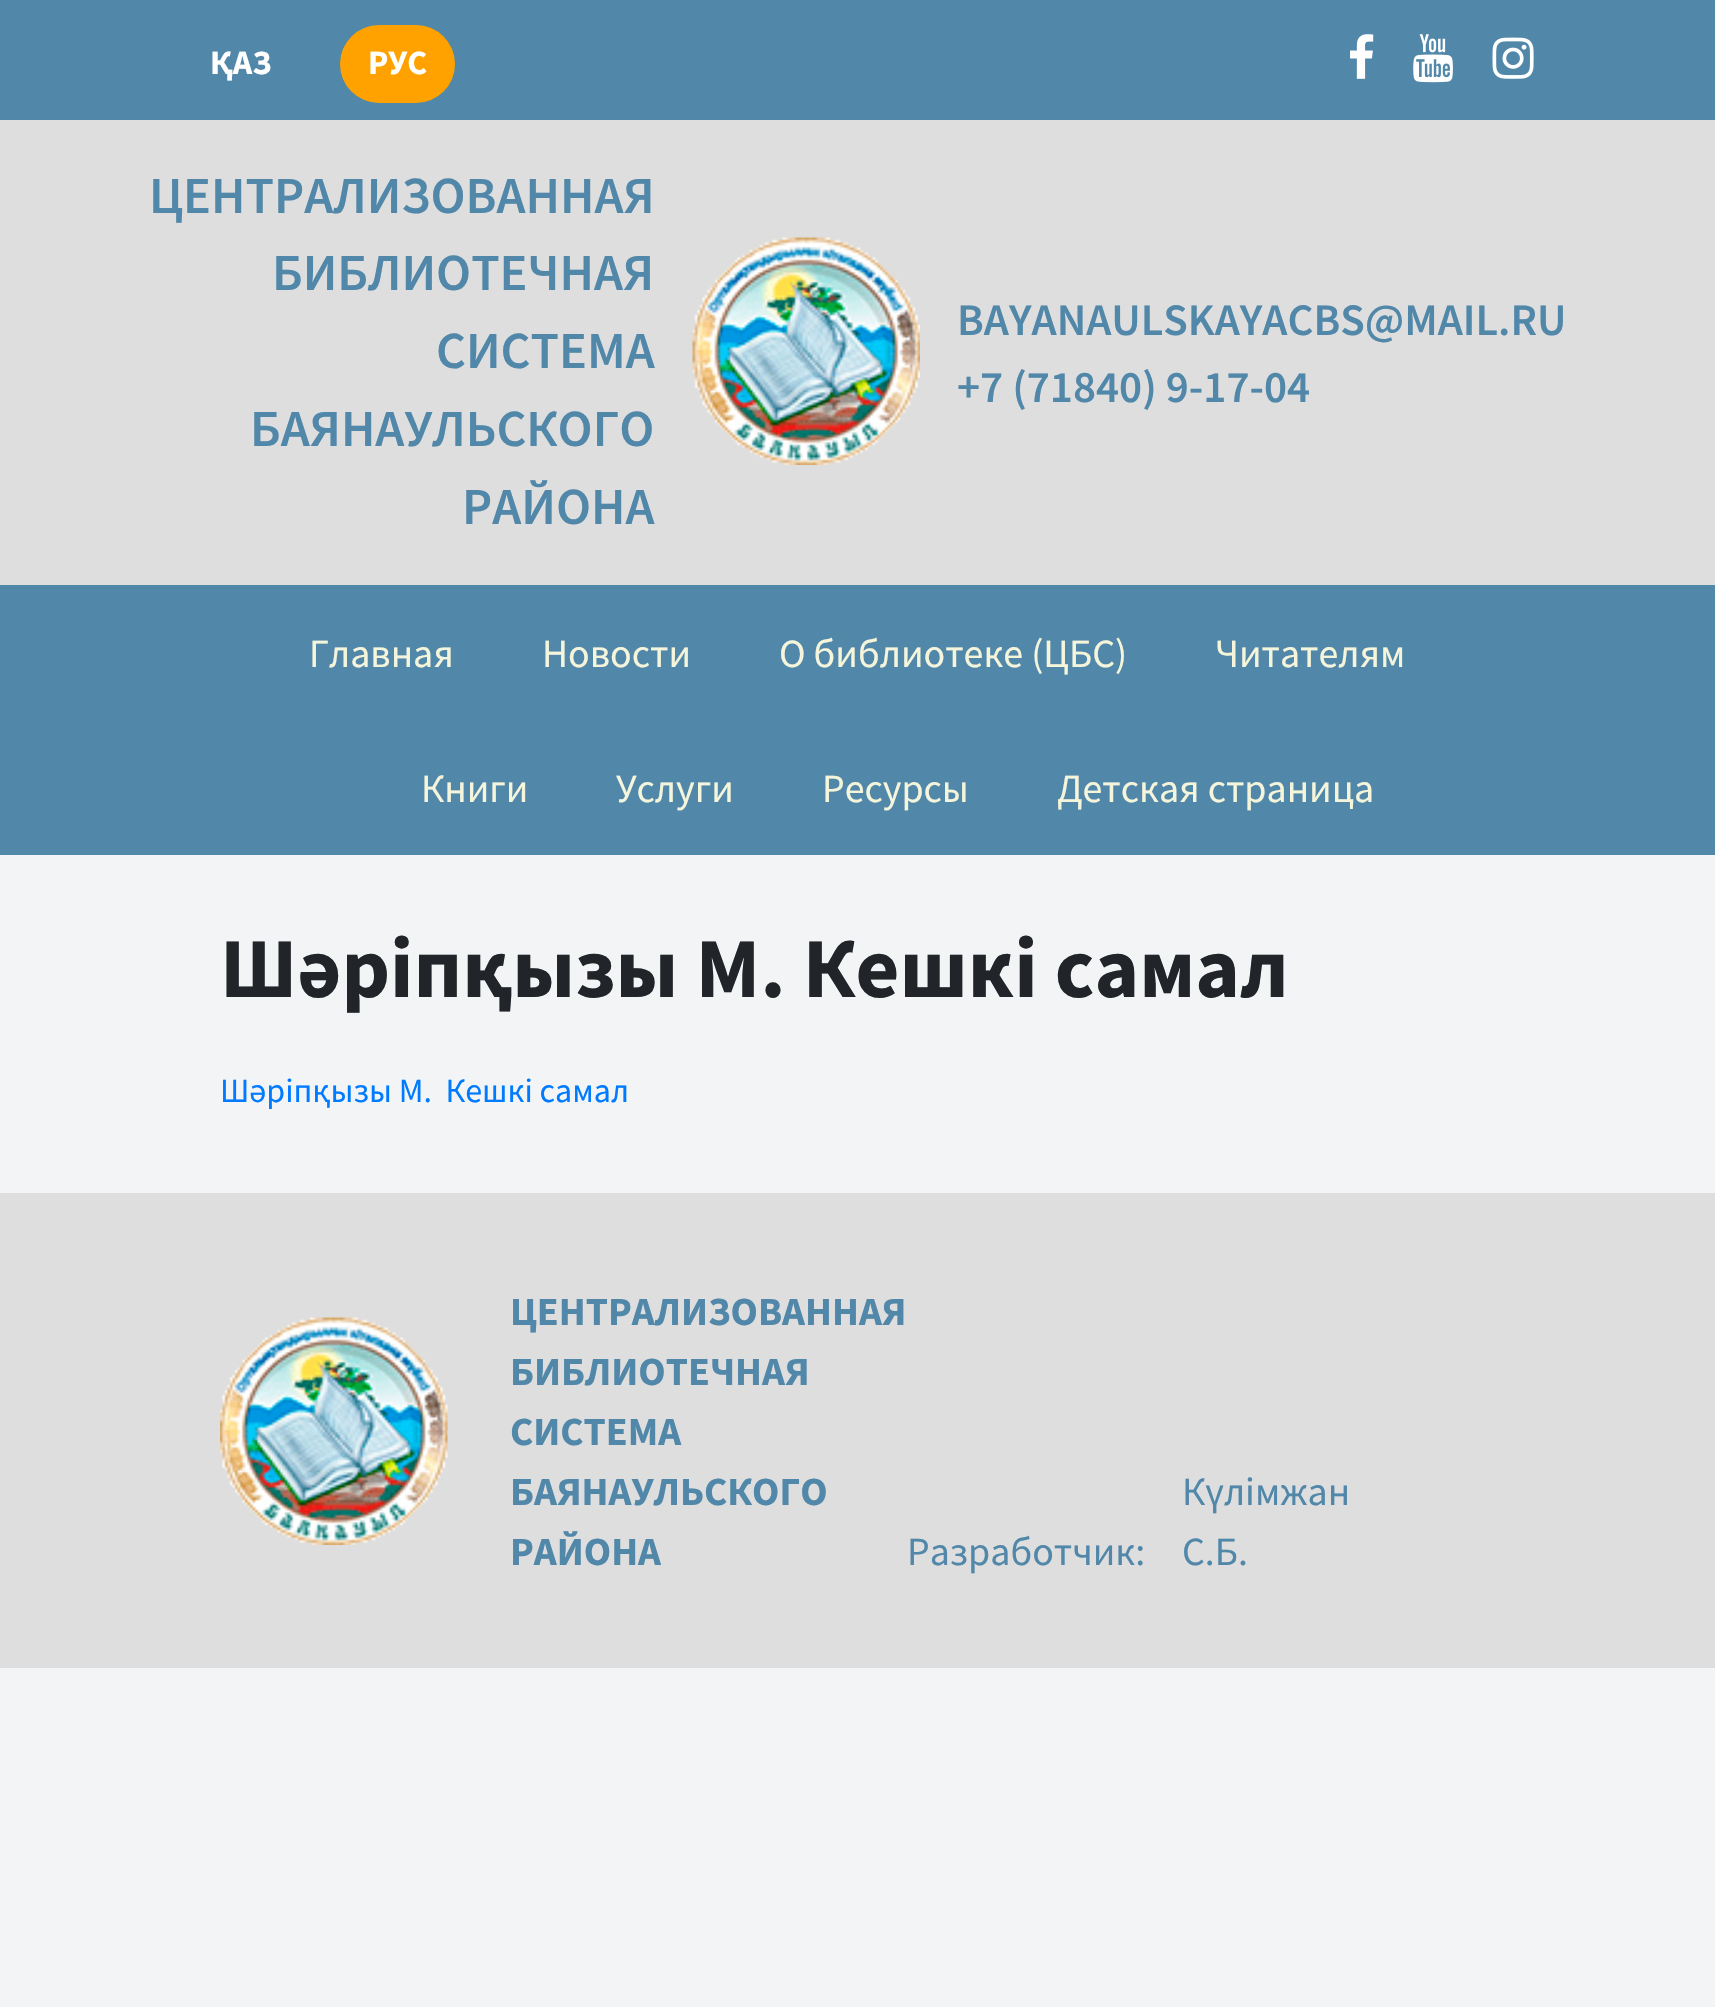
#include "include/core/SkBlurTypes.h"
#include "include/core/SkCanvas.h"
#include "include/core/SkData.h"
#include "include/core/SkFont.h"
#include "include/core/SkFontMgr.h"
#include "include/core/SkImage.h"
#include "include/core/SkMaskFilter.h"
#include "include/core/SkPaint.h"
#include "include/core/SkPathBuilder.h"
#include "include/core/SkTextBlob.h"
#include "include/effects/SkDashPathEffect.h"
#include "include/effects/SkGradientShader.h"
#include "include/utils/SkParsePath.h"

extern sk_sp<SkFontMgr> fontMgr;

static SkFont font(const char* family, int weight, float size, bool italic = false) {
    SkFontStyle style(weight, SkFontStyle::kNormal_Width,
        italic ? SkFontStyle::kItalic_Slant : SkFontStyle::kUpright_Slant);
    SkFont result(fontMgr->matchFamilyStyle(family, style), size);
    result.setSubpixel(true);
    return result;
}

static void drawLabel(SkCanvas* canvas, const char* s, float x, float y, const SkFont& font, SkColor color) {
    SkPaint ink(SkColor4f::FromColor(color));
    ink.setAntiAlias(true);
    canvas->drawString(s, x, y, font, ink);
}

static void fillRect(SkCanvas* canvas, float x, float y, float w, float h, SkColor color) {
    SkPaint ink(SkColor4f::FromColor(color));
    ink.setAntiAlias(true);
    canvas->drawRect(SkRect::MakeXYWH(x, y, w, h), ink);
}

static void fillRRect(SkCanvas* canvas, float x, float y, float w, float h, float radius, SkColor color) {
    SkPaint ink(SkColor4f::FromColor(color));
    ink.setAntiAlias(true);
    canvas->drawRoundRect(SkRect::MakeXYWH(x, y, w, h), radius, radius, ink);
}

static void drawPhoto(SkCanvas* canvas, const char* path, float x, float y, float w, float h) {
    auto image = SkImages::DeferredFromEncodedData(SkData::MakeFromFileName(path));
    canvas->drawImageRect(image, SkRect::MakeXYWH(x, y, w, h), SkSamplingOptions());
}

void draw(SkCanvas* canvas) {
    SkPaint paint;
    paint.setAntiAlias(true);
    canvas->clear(0xFFF3F4F6);
    fillRect(canvas, 0, 0, 1715, 120, 0xFF5187A9);
    SkFont font1 = font("Source Sans Pro", 700, 34);
    drawLabel(canvas, "ҚАЗ", 210, 74, font1, 0xFFFFFFFF);
    fillRRect(canvas, 340, 25, 115, 78, 39, 0xFFFFA200);
    drawLabel(canvas, "РУС", 368, 74, font1, 0xFFFFFFFF);
    drawPhoto(canvas, "assets/img1.png", 1350, 34, 24, 45);
    drawPhoto(canvas, "assets/img2.png", 1413, 34, 40, 49);
    drawPhoto(canvas, "assets/img3.png", 1492, 37, 42, 42);
    fillRect(canvas, 0, 120, 1715, 465, 0xFFDEDEDE);
    SkFont font2 = font("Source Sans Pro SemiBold", 600, 52);
    drawLabel(canvas, "ЦЕНТРАЛИЗОВАННАЯ", 149, 213, font2, 0xFF5187A9);
    drawLabel(canvas, "БИБЛИОТЕЧНАЯ", 272, 290, font2, 0xFF5187A9);
    drawLabel(canvas, "СИСТЕМА", 436, 368, font2, 0xFF5187A9);
    drawLabel(canvas, "БАЯНАУЛЬСКОГО", 250, 446, font2, 0xFF5187A9);
    drawLabel(canvas, "РАЙОНА", 462, 524, font2, 0xFF5187A9);
    drawPhoto(canvas, "assets/img4.png", 692, 237, 228, 228);
    SkFont font3 = font("Source Sans Pro SemiBold", 600, 45);
    drawLabel(canvas, "BAYANAULSKAYACBS@MAIL.RU", 957, 335, font3, 0xFF5187A9);
    drawLabel(canvas, "+7 (71840) 9-17-04", 957, 402, font3, 0xFF5187A9);
    fillRect(canvas, 0, 585, 1715, 270, 0xFF5187A9);
    SkFont font4 = font("Source Sans Pro", 400, 40);
    drawLabel(canvas, "Главная", 309, 667, font4, 0xFFF5F5DC);
    drawLabel(canvas, "Новости", 542, 667, font4, 0xFFF5F5DC);
    drawLabel(canvas, "О библиотеке (ЦБС)", 779, 667, font4, 0xFFF5F5DC);
    drawLabel(canvas, "Читателям", 1215, 667, font4, 0xFFF5F5DC);
    drawLabel(canvas, "Книги", 421, 802, font4, 0xFFF5F5DC);
    drawLabel(canvas, "Услуги", 616, 802, font4, 0xFFF5F5DC);
    drawLabel(canvas, "Ресурсы", 822, 802, font4, 0xFFF5F5DC);
    drawLabel(canvas, "Детская страница", 1057, 802, font4, 0xFFF5F5DC);
    SkFont font5 = font("Source Sans Pro", 700, 85);
    drawLabel(canvas, "Шәріпқызы М. Кешкі самал", 220, 997, font5, 0xFF212529);
    SkFont font6 = font("Source Sans Pro", 400, 34);
    drawLabel(canvas, "Шәріпқызы М.  Кешкі самал", 220, 1102, font6, 0xFF007BFF);
    fillRect(canvas, 0, 1193, 1715, 475, 0xFFDEDEDE);
    drawPhoto(canvas, "assets/img5.png", 220, 1317, 228, 228);
    SkFont font7 = font("Source Sans Pro", 700, 40);
    drawLabel(canvas, "ЦЕНТРАЛИЗОВАННАЯ", 510, 1325, font7, 0xFF5187A9);
    drawLabel(canvas, "БИБЛИОТЕЧНАЯ", 510, 1385, font7, 0xFF5187A9);
    drawLabel(canvas, "СИСТЕМА", 510, 1445, font7, 0xFF5187A9);
    drawLabel(canvas, "БАЯНАУЛЬСКОГО", 510, 1505, font7, 0xFF5187A9);
    drawLabel(canvas, "РАЙОНА", 510, 1565, font7, 0xFF5187A9);
    drawLabel(canvas, "Разработчик:", 907, 1565, font4, 0xFF5187A9);
    drawLabel(canvas, "Күлімжан", 1182, 1505, font4, 0xFF5187A9);
    drawLabel(canvas, "С.Б.", 1182, 1565, font4, 0xFF5187A9);
}
